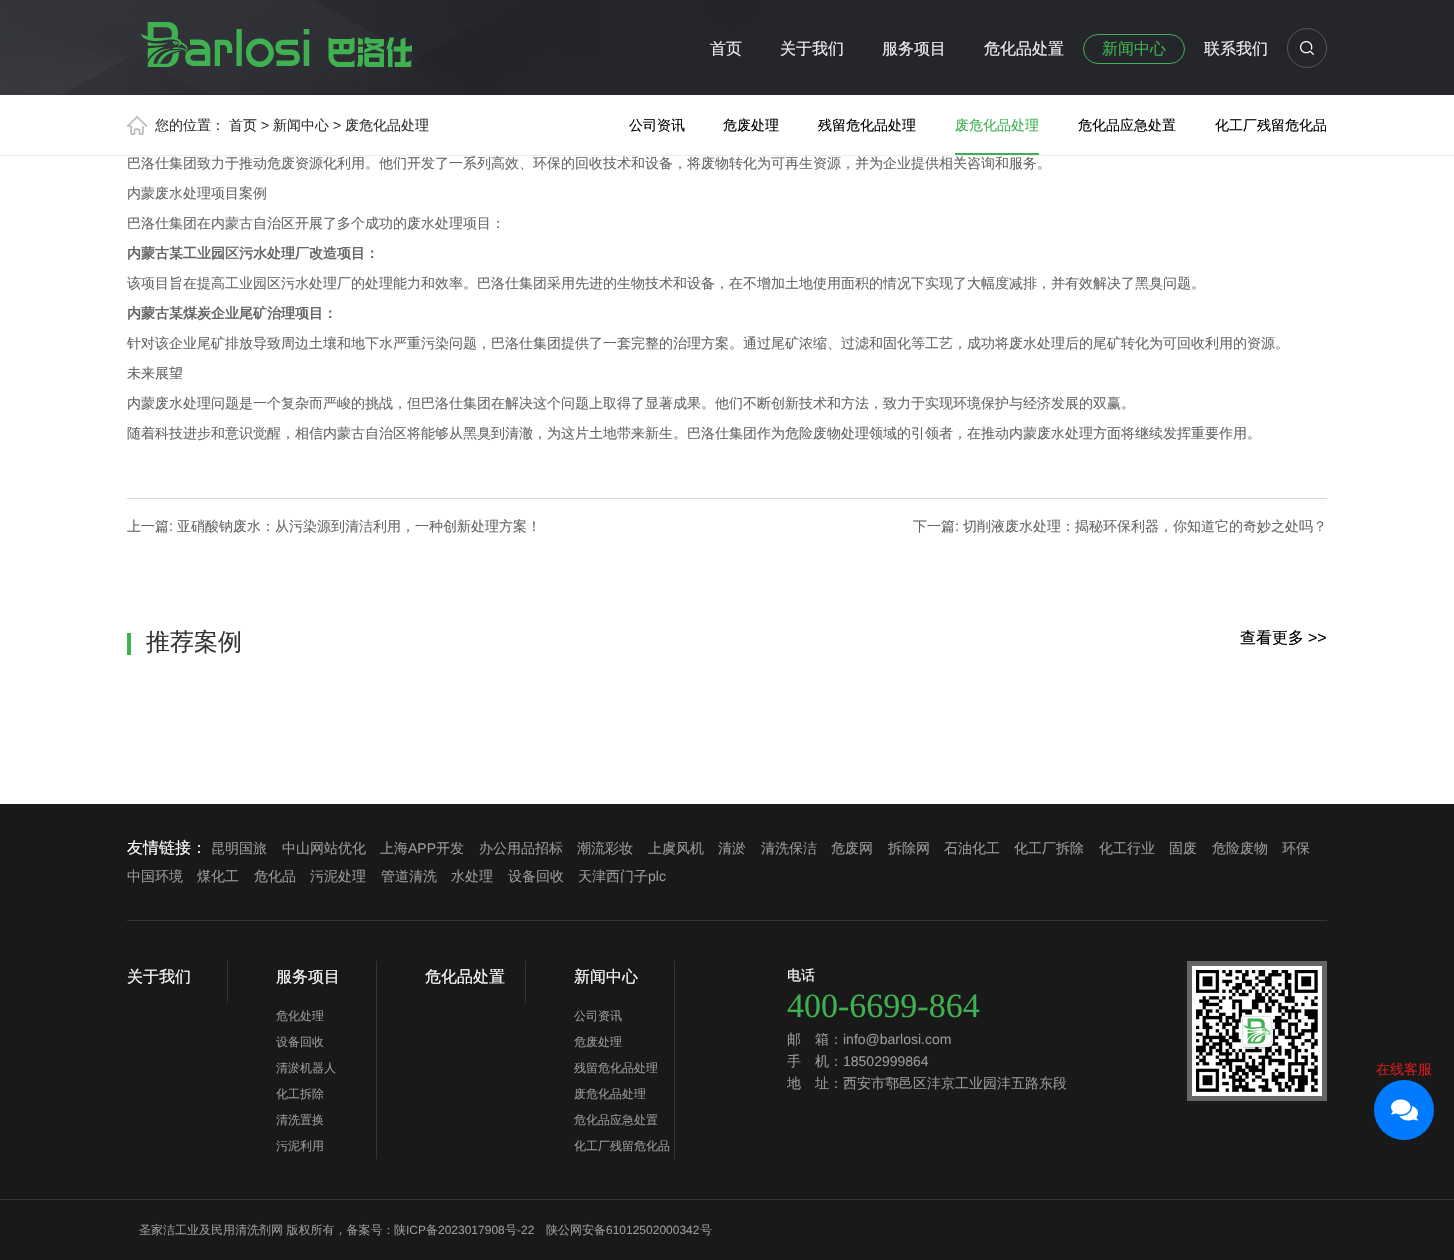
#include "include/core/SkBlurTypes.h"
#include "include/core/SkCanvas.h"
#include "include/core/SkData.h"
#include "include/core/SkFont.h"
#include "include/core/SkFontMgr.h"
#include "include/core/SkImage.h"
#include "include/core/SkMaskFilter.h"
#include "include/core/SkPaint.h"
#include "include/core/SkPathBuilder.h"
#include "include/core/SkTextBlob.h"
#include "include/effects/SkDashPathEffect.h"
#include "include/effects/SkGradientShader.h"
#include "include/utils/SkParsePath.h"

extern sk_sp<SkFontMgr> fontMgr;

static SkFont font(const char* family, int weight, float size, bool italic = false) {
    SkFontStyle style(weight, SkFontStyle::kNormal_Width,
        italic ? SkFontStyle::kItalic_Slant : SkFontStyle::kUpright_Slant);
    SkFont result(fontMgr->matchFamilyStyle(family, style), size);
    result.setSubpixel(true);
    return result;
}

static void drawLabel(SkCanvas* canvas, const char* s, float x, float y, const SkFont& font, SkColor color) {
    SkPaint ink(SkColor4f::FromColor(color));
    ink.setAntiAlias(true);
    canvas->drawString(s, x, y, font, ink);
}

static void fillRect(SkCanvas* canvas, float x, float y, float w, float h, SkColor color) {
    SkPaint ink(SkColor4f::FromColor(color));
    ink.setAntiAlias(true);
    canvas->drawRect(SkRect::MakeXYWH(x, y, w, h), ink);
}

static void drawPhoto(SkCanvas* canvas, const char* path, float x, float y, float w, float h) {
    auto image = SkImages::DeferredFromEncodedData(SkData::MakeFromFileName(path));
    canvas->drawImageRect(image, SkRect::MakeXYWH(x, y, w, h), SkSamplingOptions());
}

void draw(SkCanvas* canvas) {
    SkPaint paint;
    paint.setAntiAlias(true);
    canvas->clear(0xFFFFFFFF);
    drawPhoto(canvas, "assets/img1.png", 0, 0, 1454, 95);
    drawPhoto(canvas, "assets/img2.png", 141, 22, 271, 45);
    SkFont font1 = font("WenQuanYi Zen Hei", 500, 16);
    drawLabel(canvas, "首页", 710, 54, font1, 0xFFEEEEEE);
    drawLabel(canvas, "关于我们", 780, 54, font1, 0xFFEEEEEE);
    drawLabel(canvas, "服务项目", 882, 54, font1, 0xFFEEEEEE);
    drawLabel(canvas, "危化品处置", 984, 54, font1, 0xFFEEEEEE);
    paint.setStroke(true);
    paint.setStrokeWidth(1);
    paint.setColor(0xFF3FB150);
    canvas->drawRoundRect(SkRect::MakeXYWH(1083.5f, 34.5f, 101, 29), 14.5f, 14.5f, paint);
    drawLabel(canvas, "新闻中心", 1102, 54, font1, 0xFF3FB150);
    drawLabel(canvas, "联系我们", 1204, 54, font1, 0xFFEEEEEE);
    drawPhoto(canvas, "assets/img3.png", 1300, 41, 14, 14);
    paint.setColor(0xFF52545B);
    canvas->drawCircle(1307, 48, 19.5f, paint);
    fillRect(canvas, 0, 155, 1454, 1, 0xFFEEEEEE);
    drawPhoto(canvas, "assets/img4.png", 127, 116, 20, 19);
    SkFont font2 = font("WenQuanYi Zen Hei", 500, 14);
    drawLabel(canvas, "您的位置：", 155, 130, font2, 0xFF333333);
    drawLabel(canvas, "首页", 229, 130, font2, 0xFF333333);
    SkFont font3 = font("Liberation Sans", 400, 14);
    drawLabel(canvas, ">", 261, 130, font3, 0xFF333333);
    drawLabel(canvas, "新闻中心", 273, 130, font2, 0xFF333333);
    drawLabel(canvas, ">", 333, 130, font3, 0xFF333333);
    drawLabel(canvas, "废危化品处理", 345, 130, font2, 0xFF333333);
    drawLabel(canvas, "公司资讯", 629, 130, font2, 0xFF000000);
    drawLabel(canvas, "危废处理", 723, 130, font2, 0xFF000000);
    drawLabel(canvas, "残留危化品处理", 818, 130, font2, 0xFF000000);
    drawLabel(canvas, "废危化品处理", 955, 130, font2, 0xFF3FB150);
    fillRect(canvas, 955, 153, 84, 2, 0xFF3FB150);
    drawLabel(canvas, "危化品应急处置", 1078, 130, font2, 0xFF000000);
    drawLabel(canvas, "化工厂残留危化品", 1215, 130, font2, 0xFF000000);
    drawLabel(canvas, "巴洛仕集团致力于推动危废资源化利用。他们开发了一系列高效、环保的回收技术和设备，将废物转化为可再生资源，并为企业提供相关咨询和服务。", 127, 168, font2, 0xFF666666);
    drawLabel(canvas, "内蒙废水处理项目案例", 127, 198, font2, 0xFF666666);
    drawLabel(canvas, "巴洛仕集团在内蒙古自治区开展了多个成功的废水处理项目：", 127, 228, font2, 0xFF666666);
    SkFont font4 = font("WenQuanYi Zen Hei", 700, 14);
    drawLabel(canvas, "内蒙古某工业园区污水处理厂改造项目：", 127, 258, font4, 0xFF666666);
    drawLabel(canvas, "该项目旨在提高工业园区污水处理厂的处理能力和效率。巴洛仕集团采用先进的生物技术和设备，在不增加土地使用面积的情况下实现了大幅度减排，并有效解决了黑臭问题。", 127, 288, font2, 0xFF666666);
    drawLabel(canvas, "内蒙古某煤炭企业尾矿治理项目：", 127, 318, font4, 0xFF666666);
    drawLabel(canvas, "针对该企业尾矿排放导致周边土壤和地下水严重污染问题，巴洛仕集团提供了一套完整的治理方案。通过尾矿浓缩、过滤和固化等工艺，成功将废水处理后的尾矿转化为可回收利用的资源。", 127, 348, font2, 0xFF666666);
    drawLabel(canvas, "未来展望", 127, 378, font2, 0xFF666666);
    drawLabel(canvas, "内蒙废水处理问题是一个复杂而严峻的挑战，但巴洛仕集团在解决这个问题上取得了显著成果。他们不断创新技术和方法，致力于实现环境保护与经济发展的双赢。", 127, 408, font2, 0xFF666666);
    drawLabel(canvas, "随着科技进步和意识觉醒，相信内蒙古自治区将能够从黑臭到清澈，为这片土地带来新生。巴洛仕集团作为危险废物处理领域的引领者，在推动内蒙废水处理方面将继续发挥重要作用。", 127, 438, font2, 0xFF666666);
    fillRect(canvas, 127, 498, 1200, 1, 0xFFD7D6D6);
    drawLabel(canvas, "上一篇", 127, 531, font2, 0xFF666666);
    drawLabel(canvas, ":", 169, 531, font3, 0xFF666666);
    drawLabel(canvas, "亚硝酸钠废水：从污染源到清洁利用，一种创新处理方案！", 177, 531, font2, 0xFF666666);
    drawLabel(canvas, "下一篇", 913, 531, font2, 0xFF666666);
    drawLabel(canvas, ":", 955, 531, font3, 0xFF666666);
    drawLabel(canvas, "切削液废水处理：揭秘环保利器，你知道它的奇妙之处吗？", 963, 531, font2, 0xFF666666);
    fillRect(canvas, 127, 633, 4, 22, 0xFF3FB150);
    SkFont font5 = font("WenQuanYi Zen Hei", 500, 24);
    drawLabel(canvas, "推荐案例", 146, 650, font5, 0xFF333333);
    drawLabel(canvas, "查看更多", 1240, 643, font1, 0xFF000000);
    SkFont font6 = font("Liberation Sans", 400, 16);
    drawLabel(canvas, ">>", 1308, 643, font6, 0xFF000000);
    fillRect(canvas, 0, 804, 1454, 456, 0xFF191919);
    fillRect(canvas, 127, 920, 1200, 1, 0xFF353535);
    drawLabel(canvas, "友情链接：", 127, 853, font1, 0xFFFFFFFF);
    drawLabel(canvas, "昆明国旅", 211, 853, font2, 0xFF999999);
    drawLabel(canvas, "中山网站优化", 282, 853, font2, 0xFF999999);
    drawLabel(canvas, "上海", 380, 853, font2, 0xFF999999);
    drawLabel(canvas, "APP", 408, 853, font3, 0xFF999999);
    drawLabel(canvas, "开发", 436, 853, font2, 0xFF999999);
    drawLabel(canvas, "办公用品招标", 479, 853, font2, 0xFF999999);
    drawLabel(canvas, "潮流彩妆", 577, 853, font2, 0xFF999999);
    drawLabel(canvas, "上虞风机", 648, 853, font2, 0xFF999999);
    drawLabel(canvas, "清淤", 718, 853, font2, 0xFF999999);
    drawLabel(canvas, "清洗保洁", 761, 853, font2, 0xFF999999);
    drawLabel(canvas, "危废网", 831, 853, font2, 0xFF999999);
    drawLabel(canvas, "拆除网", 888, 853, font2, 0xFF999999);
    drawLabel(canvas, "石油化工", 944, 853, font2, 0xFF999999);
    drawLabel(canvas, "化工厂拆除", 1014, 853, font2, 0xFF999999);
    drawLabel(canvas, "化工行业", 1099, 853, font2, 0xFF999999);
    drawLabel(canvas, "固废", 1169, 853, font2, 0xFF999999);
    drawLabel(canvas, "危险废物", 1212, 853, font2, 0xFF999999);
    drawLabel(canvas, "环保", 1282, 853, font2, 0xFF999999);
    drawLabel(canvas, "中国环境", 127, 881, font2, 0xFF999999);
    drawLabel(canvas, "煤化工", 197, 881, font2, 0xFF999999);
    drawLabel(canvas, "危化品", 254, 881, font2, 0xFF999999);
    drawLabel(canvas, "污泥处理", 310, 881, font2, 0xFF999999);
    drawLabel(canvas, "管道清洗", 381, 881, font2, 0xFF999999);
    drawLabel(canvas, "水处理", 451, 881, font2, 0xFF999999);
    drawLabel(canvas, "设备回收", 508, 881, font2, 0xFF999999);
    drawLabel(canvas, "天津西门子", 578, 881, font2, 0xFF999999);
    drawLabel(canvas, "plc", 648, 881, font3, 0xFF999999);
    fillRect(canvas, 227, 961, 1, 42, 0xFF353535);
    drawLabel(canvas, "关于我们", 127, 982, font1, 0xFFFFFFFF);
    fillRect(canvas, 376, 961, 1, 198, 0xFF353535);
    drawLabel(canvas, "服务项目", 276, 982, font1, 0xFFFFFFFF);
    SkFont font7 = font("WenQuanYi Zen Hei", 500, 12);
    drawLabel(canvas, "危化处理", 276, 1020, font7, 0xFF999999);
    drawLabel(canvas, "设备回收", 276, 1046, font7, 0xFF999999);
    drawLabel(canvas, "清淤机器人", 276, 1072, font7, 0xFF999999);
    drawLabel(canvas, "化工拆除", 276, 1098, font7, 0xFF999999);
    drawLabel(canvas, "清洗置换", 276, 1124, font7, 0xFF999999);
    drawLabel(canvas, "污泥利用", 276, 1150, font7, 0xFF999999);
    fillRect(canvas, 525, 961, 1, 42, 0xFF353535);
    drawLabel(canvas, "危化品处置", 425, 982, font1, 0xFFFFFFFF);
    fillRect(canvas, 674, 961, 1, 198, 0xFF353535);
    drawLabel(canvas, "新闻中心", 574, 982, font1, 0xFFFFFFFF);
    drawLabel(canvas, "公司资讯", 574, 1020, font7, 0xFF999999);
    drawLabel(canvas, "危废处理", 574, 1046, font7, 0xFF999999);
    drawLabel(canvas, "残留危化品处理", 574, 1072, font7, 0xFF999999);
    drawLabel(canvas, "废危化品处理", 574, 1098, font7, 0xFF999999);
    drawLabel(canvas, "危化品应急处置", 574, 1124, font7, 0xFF999999);
    drawLabel(canvas, "化工厂残留危化品", 574, 1150, font7, 0xFF999999);
    drawLabel(canvas, "电话", 787, 980, font2, 0xFFFFFFFF);
    SkFont font8 = font("Liberation Serif", 400, 34);
    drawLabel(canvas, "400-6699-864", 787, 1017, font8, 0xFF3FB150);
    drawLabel(canvas, "邮　箱：", 787, 1044, font2, 0xFF999999);
    drawLabel(canvas, "info@barlosi.com", 843, 1044, font3, 0xFF999999);
    drawLabel(canvas, "手　机：", 787, 1066, font2, 0xFF999999);
    drawLabel(canvas, "18502999864", 843, 1066, font3, 0xFF999999);
    drawLabel(canvas, "地　址：西安市鄠邑区沣京工业园沣五路东段", 787, 1088, font2, 0xFF999999);
    paint.setStrokeWidth(5);
    paint.setColor(0xFF666666);
    canvas->drawRect(SkRect::MakeXYWH(1189.5f, 963.5f, 135, 135), paint);
    drawPhoto(canvas, "assets/img5.png", 1192, 966, 130, 130);
    fillRect(canvas, 0, 1199, 1454, 1, 0xFF353535);
    drawLabel(canvas, "圣家洁工业及民用清洗剂网 版权所有，备案号：", 139, 1234, font7, 0xFF999999);
    drawLabel(canvas, "陕", 394, 1234, font7, 0xFF999999);
    SkFont font9 = font("Liberation Sans", 400, 12);
    drawLabel(canvas, "ICP", 406, 1234, font9, 0xFF999999);
    drawLabel(canvas, "备", 426, 1234, font7, 0xFF999999);
    drawLabel(canvas, "2023017908", 438, 1234, font9, 0xFF999999);
    drawLabel(canvas, "号", 505, 1234, font7, 0xFF999999);
    drawLabel(canvas, "-22", 517, 1234, font9, 0xFF999999);
    drawLabel(canvas, "陕公网安备", 546, 1234, font7, 0xFF999999);
    drawLabel(canvas, "61012502000342", 606, 1234, font9, 0xFF999999);
    drawLabel(canvas, "号", 700, 1234, font7, 0xFF999999);
    paint.setStroke(false);
    paint.setColor(0xFF007BFF);
    canvas->drawCircle(1404, 1110, 30, paint);
    drawLabel(canvas, "在线客服", 1376, 1074, font2, 0xFFCD1C1C);
    drawPhoto(canvas, "assets/img6.png", 1391, 1099, 27, 22);
}
